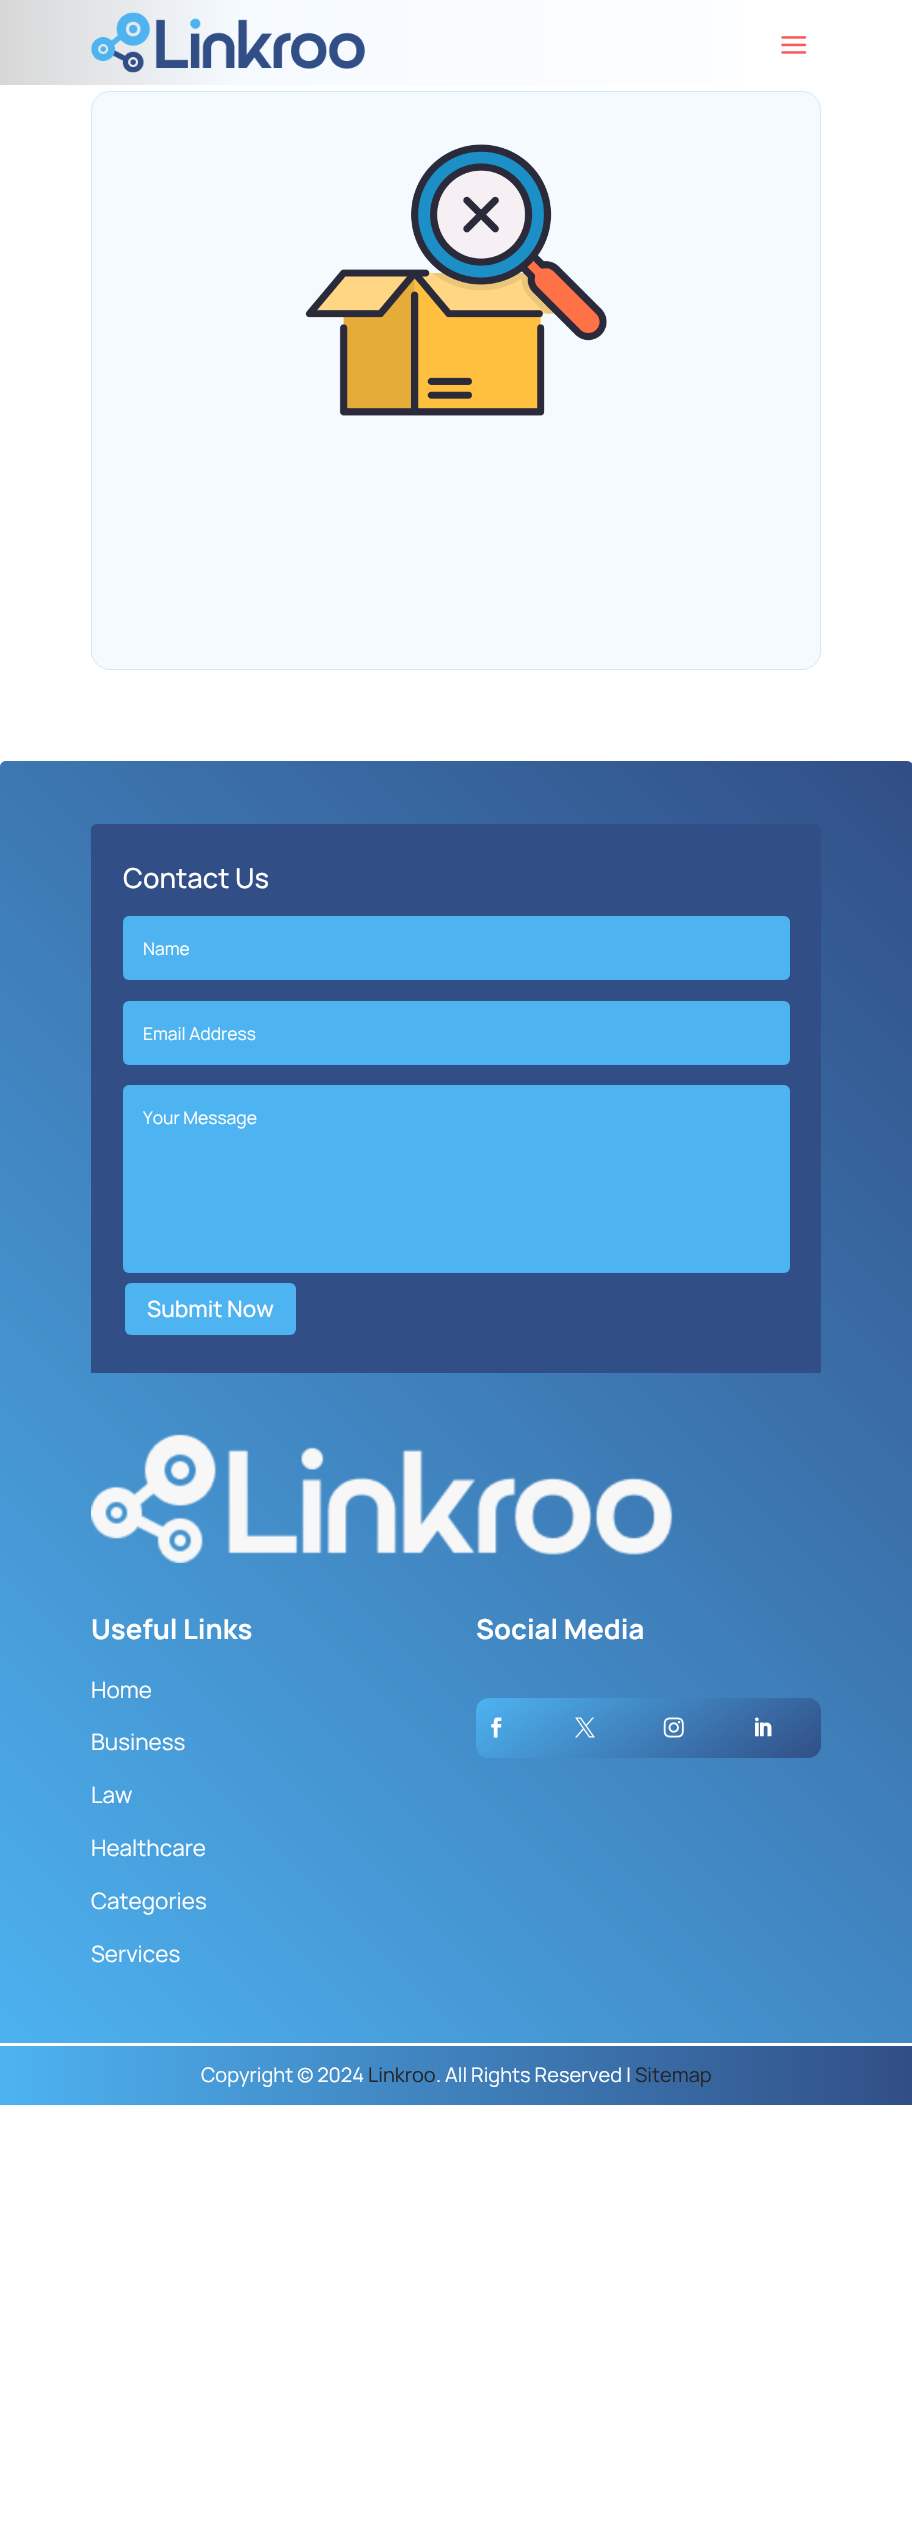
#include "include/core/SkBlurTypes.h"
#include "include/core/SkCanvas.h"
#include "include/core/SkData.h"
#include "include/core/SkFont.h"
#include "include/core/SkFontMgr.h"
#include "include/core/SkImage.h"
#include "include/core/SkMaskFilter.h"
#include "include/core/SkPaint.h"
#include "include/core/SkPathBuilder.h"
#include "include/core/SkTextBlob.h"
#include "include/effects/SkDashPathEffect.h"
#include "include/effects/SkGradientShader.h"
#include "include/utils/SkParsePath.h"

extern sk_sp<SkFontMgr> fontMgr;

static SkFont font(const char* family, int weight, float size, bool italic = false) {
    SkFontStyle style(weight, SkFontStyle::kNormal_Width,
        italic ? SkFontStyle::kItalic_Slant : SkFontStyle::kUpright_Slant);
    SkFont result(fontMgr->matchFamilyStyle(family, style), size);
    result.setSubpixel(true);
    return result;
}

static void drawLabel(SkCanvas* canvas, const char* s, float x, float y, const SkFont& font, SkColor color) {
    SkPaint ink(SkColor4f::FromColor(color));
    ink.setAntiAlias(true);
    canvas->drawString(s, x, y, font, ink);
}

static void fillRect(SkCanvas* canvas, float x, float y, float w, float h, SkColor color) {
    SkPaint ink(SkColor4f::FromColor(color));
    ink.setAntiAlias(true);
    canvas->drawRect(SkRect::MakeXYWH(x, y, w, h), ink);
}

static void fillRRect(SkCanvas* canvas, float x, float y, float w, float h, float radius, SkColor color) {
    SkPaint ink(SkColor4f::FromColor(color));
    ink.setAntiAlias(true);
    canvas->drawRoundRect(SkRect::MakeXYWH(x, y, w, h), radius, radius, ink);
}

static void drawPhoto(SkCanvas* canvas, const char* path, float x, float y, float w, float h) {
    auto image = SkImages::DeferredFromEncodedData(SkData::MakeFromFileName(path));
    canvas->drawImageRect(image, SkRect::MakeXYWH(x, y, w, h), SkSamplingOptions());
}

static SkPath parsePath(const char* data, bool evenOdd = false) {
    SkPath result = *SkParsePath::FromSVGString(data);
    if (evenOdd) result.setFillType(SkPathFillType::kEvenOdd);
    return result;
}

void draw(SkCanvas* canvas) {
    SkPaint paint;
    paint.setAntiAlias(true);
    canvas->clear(0xFFFFFFFF);
    {
        const SkColor colors[] = {0xFFD7D7D7, 0xFFF5FAFF, 0xFFFFFFFF};
        const float stops[] = {0, 0.26f, 1};
        const SkPoint ends[] = {{0, 43}, {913, 42}};
        paint.setShader(SkGradientShader::MakeLinear(ends, colors, stops, 3, SkTileMode::kClamp));
        paint.setAlpha(255);
    }
    canvas->drawRect(SkRect::MakeXYWH(0, 0, 744, 85), paint);
    drawPhoto(canvas, "assets/img1.png", 91, 12, 274, 61);
    drawPhoto(canvas, "assets/img2.png", 781, 36, 26, 18);
    paint.setShader(nullptr);
    paint.setColor(0xFFF5FAFF);
    canvas->drawRoundRect(SkRect::MakeXYWH(91.5f, 91.5f, 729, 578), 18.5f, 18.5f, paint);
    paint.setStroke(true);
    paint.setStrokeWidth(1);
    paint.setColor(0xFFD0E9FF);
    canvas->drawRoundRect(SkRect::MakeXYWH(91.5f, 91.5f, 729, 578), 18.5f, 18.5f, paint);
    drawPhoto(canvas, "assets/img3.png", 305, 144, 302, 272);
    paint.setStroke(false);
    {
        const SkColor colors[] = {0xFF4DB3F1, 0xFF314E86};
        const float stops[] = {0, 1};
        const SkPoint ends[] = {{-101, 1976}, {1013, 862}};
        paint.setShader(SkGradientShader::MakeLinear(ends, colors, stops, 2, SkTileMode::kClamp));
        paint.setAlpha(255);
    }
    canvas->drawPath(parsePath("M6 761H907C910.5 761 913 763.5 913 767V2076H0V767C0 763.5 2.5 761 6 761Z"), paint);
    paint.setShader(nullptr);
    paint.setColor(0xFF314E86);
    canvas->drawPath(parsePath("M97 824H815C818.5 824 821 826.5 821 830V1373H91V830C91 826.5 93.5 824 97 824Z"), paint);
    SkFont font1 = font("Manrope", 500, 27.5f);
    drawLabel(canvas, "Contact Us", 123, 888, font1, 0xFFFFFFFF);
    fillRRect(canvas, 123, 916, 667, 64, 6, 0xFF4DB3F1);
    SkFont font2 = font("Manrope", 400, 17.5f);
    drawLabel(canvas, "Name", 143, 955, font2, 0xFFFFFFFF);
    fillRRect(canvas, 123, 1001, 667, 64, 6, 0xFF4DB3F1);
    drawLabel(canvas, "Email Address", 143, 1040, font2, 0xFFFFFFFF);
    fillRRect(canvas, 123, 1085, 667, 188, 6, 0xFF4DB3F1);
    drawLabel(canvas, "Your Message", 143, 1124, font2, 0xFFFFFFFF);
    fillRRect(canvas, 125, 1283, 171, 52, 6, 0xFF4DB3F1);
    SkFont font3 = font("Manrope", 500, 22.5f);
    drawLabel(canvas, "Submit Now", 147, 1317, font3, 0xFFFFFFFF);
    drawPhoto(canvas, "assets/img4.png", 91, 1434, 582, 129);
    SkFont font4 = font("Manrope", 700, 27.5f);
    drawLabel(canvas, "Useful Links", 91, 1639, font4, 0xFFFFFFFF);
    SkFont font5 = font("Manrope", 400, 22.5f);
    drawLabel(canvas, "Home", 91, 1698, font5, 0xFFFFFFFF);
    drawLabel(canvas, "Business", 91, 1750, font5, 0xFFFFFFFF);
    drawLabel(canvas, "Law", 91, 1803, font5, 0xFFFFFFFF);
    drawLabel(canvas, "Healthcare", 91, 1856, font5, 0xFFFFFFFF);
    drawLabel(canvas, "Categories", 91, 1909, font5, 0xFFFFFFFF);
    drawLabel(canvas, "Services", 91, 1962, font5, 0xFFFFFFFF);
    drawLabel(canvas, "Social Media", 476, 1639, font4, 0xFFFFFFFF);
    {
        const SkColor colors[] = {0xFF4DB3F1, 0xFF314E86};
        const float stops[] = {0, 1};
        const SkPoint ends[] = {{578, 1626}, {720, 1829}};
        paint.setShader(SkGradientShader::MakeLinear(ends, colors, stops, 2, SkTileMode::kClamp));
        paint.setAlpha(255);
    }
    canvas->drawRoundRect(SkRect::MakeXYWH(476, 1698, 345, 60), 13, 13, paint);
    drawPhoto(canvas, "assets/img5.png", 491, 1717, 11, 21);
    drawPhoto(canvas, "assets/img6.png", 575, 1717, 20, 21);
    drawPhoto(canvas, "assets/img7.png", 663, 1717, 21, 21);
    drawPhoto(canvas, "assets/img8.png", 755, 1717, 17, 20);
    {
        const SkColor colors[] = {0xFF4DB3F1, 0xFF314E86};
        const float stops[] = {0, 1};
        const SkPoint ends[] = {{0, 2075}, {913, 2075}};
        paint.setShader(SkGradientShader::MakeLinear(ends, colors, stops, 2, SkTileMode::kClamp));
        paint.setAlpha(255);
    }
    canvas->drawRect(SkRect::MakeXYWH(0, 2046, 912, 59), paint);
    fillRect(canvas, 0, 2043, 912, 3, 0xFFFFFFFF);
    SkFont font6 = font("Manrope", 400, 20);
    drawLabel(canvas, "Copyright © 2024", 201, 2082, font6, 0xFFFFFFFF);
    drawLabel(canvas, "Linkroo", 368, 2082, font6, 0xFF252529);
    drawLabel(canvas, ". All Rights Reserved |", 436, 2082, font6, 0xFFFFFFFF);
    drawLabel(canvas, "Sitemap", 635, 2082, font6, 0xFF252529);
}
